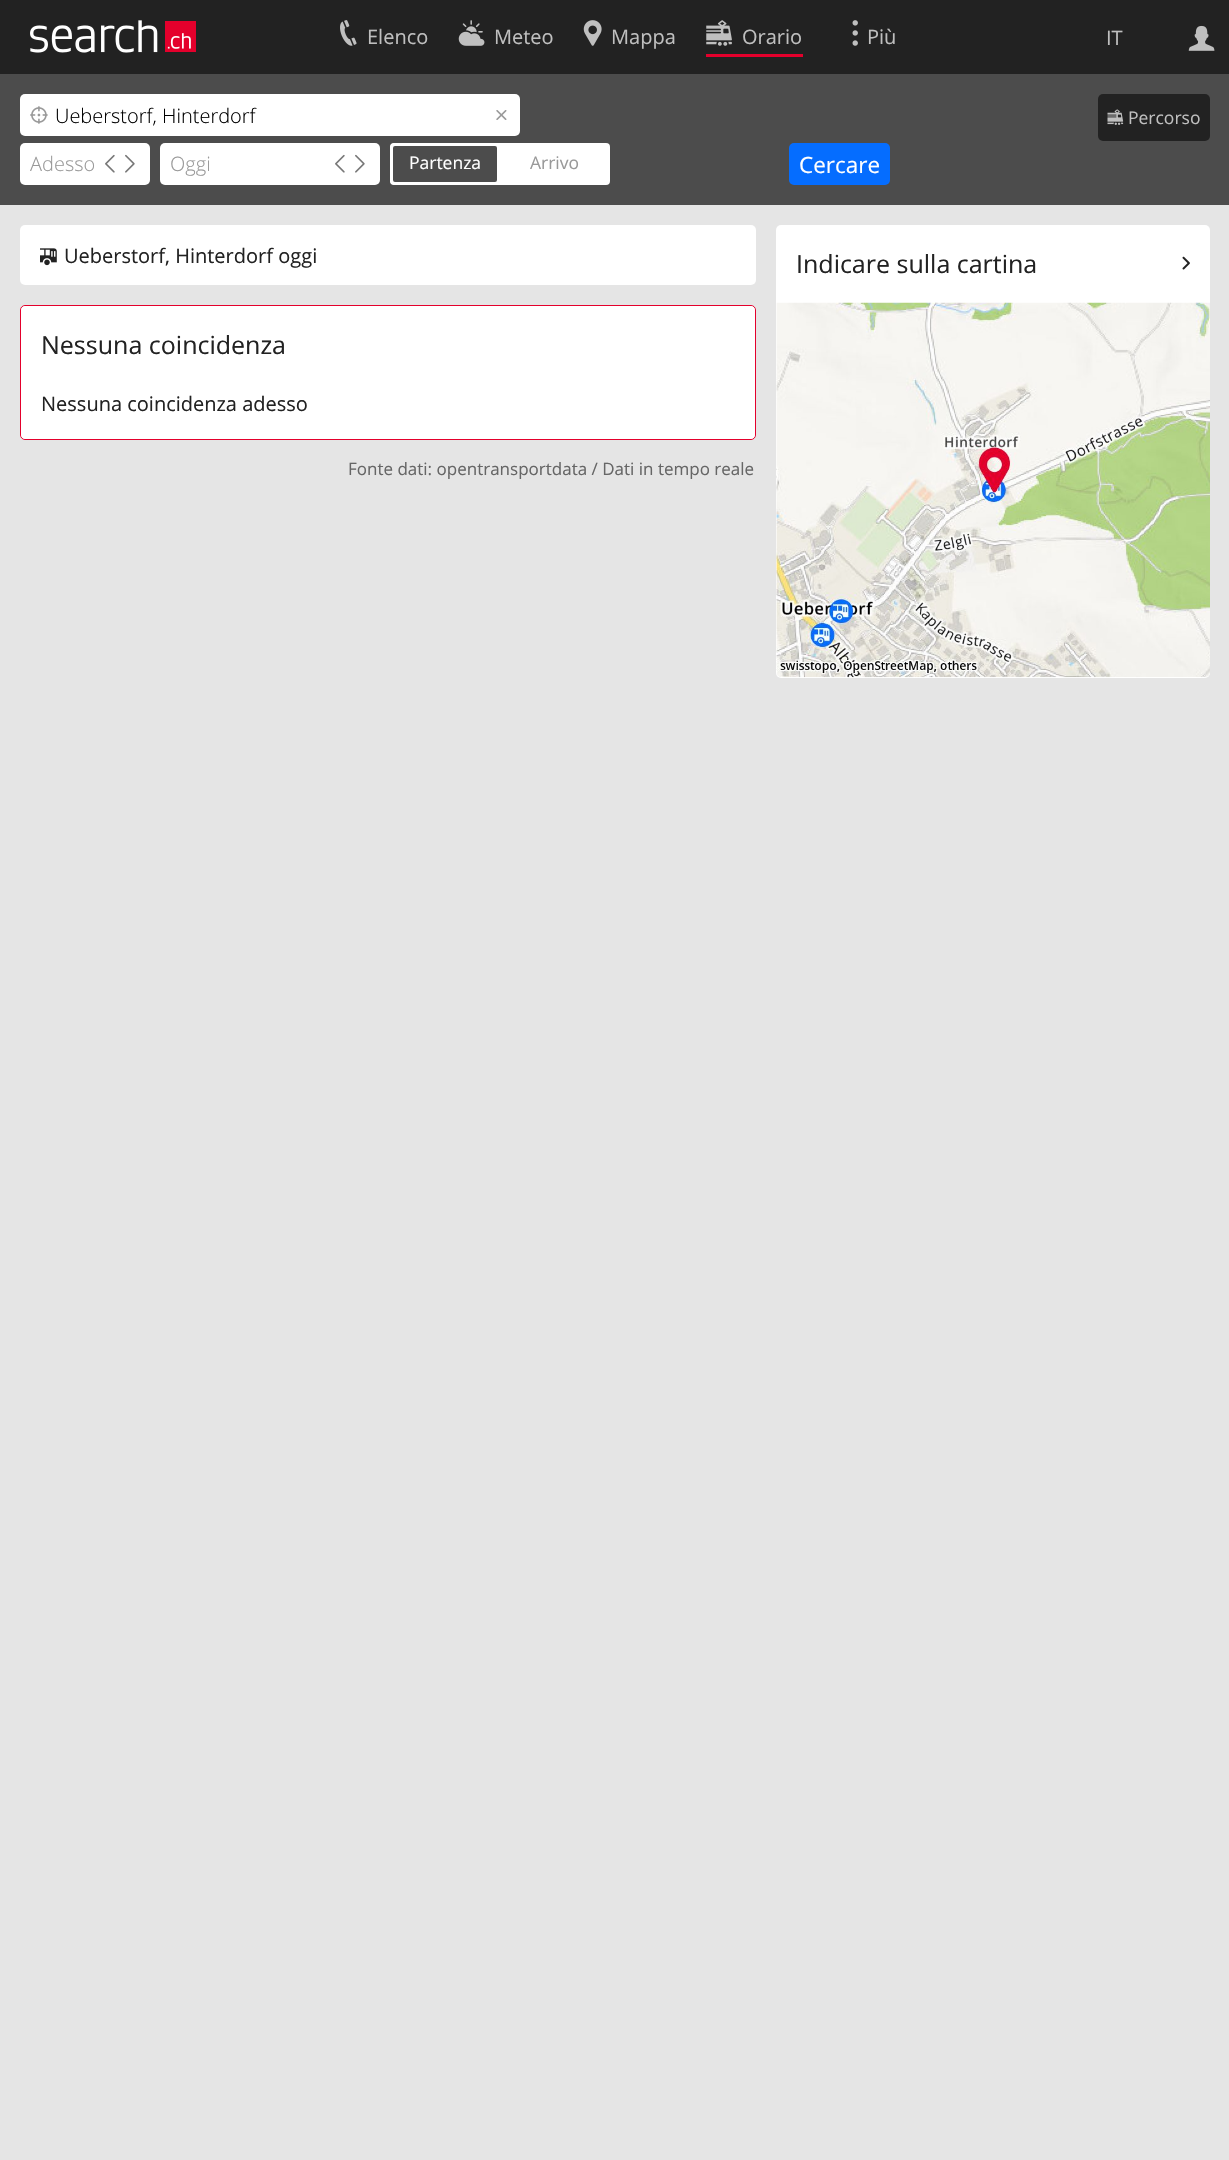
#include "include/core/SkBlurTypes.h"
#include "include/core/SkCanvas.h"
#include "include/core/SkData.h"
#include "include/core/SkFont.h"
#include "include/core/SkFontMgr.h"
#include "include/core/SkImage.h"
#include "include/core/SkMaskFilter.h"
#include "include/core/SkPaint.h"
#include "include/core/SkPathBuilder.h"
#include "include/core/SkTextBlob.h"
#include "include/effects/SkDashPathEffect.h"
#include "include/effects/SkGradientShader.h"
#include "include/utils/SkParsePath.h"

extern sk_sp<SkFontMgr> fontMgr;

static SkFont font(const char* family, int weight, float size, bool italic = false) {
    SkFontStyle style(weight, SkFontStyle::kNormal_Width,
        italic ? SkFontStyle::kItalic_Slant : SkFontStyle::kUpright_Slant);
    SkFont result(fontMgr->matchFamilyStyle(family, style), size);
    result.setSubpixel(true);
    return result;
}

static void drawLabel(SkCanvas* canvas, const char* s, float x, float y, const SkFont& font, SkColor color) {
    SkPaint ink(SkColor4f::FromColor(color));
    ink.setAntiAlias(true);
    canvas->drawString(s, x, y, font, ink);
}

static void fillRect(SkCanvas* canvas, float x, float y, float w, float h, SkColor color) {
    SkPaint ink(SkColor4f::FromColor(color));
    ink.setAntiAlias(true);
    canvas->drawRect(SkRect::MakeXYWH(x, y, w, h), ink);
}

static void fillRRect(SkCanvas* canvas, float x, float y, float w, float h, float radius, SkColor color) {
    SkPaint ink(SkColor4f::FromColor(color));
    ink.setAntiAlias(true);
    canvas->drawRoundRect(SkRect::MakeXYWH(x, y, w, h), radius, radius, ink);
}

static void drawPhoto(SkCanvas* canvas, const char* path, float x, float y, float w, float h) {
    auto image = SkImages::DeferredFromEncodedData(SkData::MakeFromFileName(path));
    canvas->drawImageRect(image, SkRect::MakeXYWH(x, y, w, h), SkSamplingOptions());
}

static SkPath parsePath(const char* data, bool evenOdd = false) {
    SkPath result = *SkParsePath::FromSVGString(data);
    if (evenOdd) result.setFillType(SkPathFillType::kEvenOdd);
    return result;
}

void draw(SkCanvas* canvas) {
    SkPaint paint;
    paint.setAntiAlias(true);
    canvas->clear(0xFFE5E5E5);
    fillRect(canvas, 0, 0, 1229, 74, 0xFF222222);
    drawPhoto(canvas, "assets/img1.png", 30, 20, 166, 33);
    drawPhoto(canvas, "assets/img2.png", 340, 20, 17, 26);
    SkFont font1 = font("Open Sans", 400, 20);
    drawLabel(canvas, "Elenco", 367, 44, font1, 0xFFBFBFBF);
    drawPhoto(canvas, "assets/img3.png", 458, 20, 27, 26);
    drawLabel(canvas, "Meteo", 494, 44, font1, 0xFFBFBFBF);
    drawPhoto(canvas, "assets/img4.png", 583, 20, 19, 26);
    drawLabel(canvas, "Mappa", 611, 44, font1, 0xFFBFBFBF);
    fillRect(canvas, 706, 54, 97, 3, 0xFFE4002C);
    drawPhoto(canvas, "assets/img5.png", 706, 20, 26, 26);
    drawLabel(canvas, "Orario", 742, 44, font1, 0xFFBFBFBF);
    drawPhoto(canvas, "assets/img6.png", 852, 20, 6, 26);
    drawLabel(canvas, "Più", 867, 44, font1, 0xFFBFBFBF);
    drawLabel(canvas, "IT", 1106, 45, font1, 0xFFBFBFBF);
    drawPhoto(canvas, "assets/img7.png", 1188, 25, 27, 26);
    fillRect(canvas, 0, 74, 1229, 131, 0xFF4C4C4C);
    fillRRect(canvas, 20, 94, 500, 42, 5, 0xFFFFFFFF);
    drawPhoto(canvas, "assets/img8.png", 30, 106, 18, 18);
    SkFont font2 = font("Open Sans", 300, 20);
    drawLabel(canvas, "Ueberstorf, Hinterdorf", 55, 123, font2, 0xFF000000);
    drawPhoto(canvas, "assets/img9.png", 496, 110, 11, 10);
    fillRRect(canvas, 20, 143, 130, 42, 5, 0xFFFFFFFF);
    drawLabel(canvas, "Adesso", 30, 171, font2, 0xFF999999);
    drawPhoto(canvas, "assets/img10.png", 105, 154, 10, 19);
    drawPhoto(canvas, "assets/img11.png", 125, 154, 10, 19);
    fillRRect(canvas, 160, 143, 220, 42, 5, 0xFFFFFFFF);
    drawLabel(canvas, "Oggi", 170, 171, font2, 0xFF999999);
    drawPhoto(canvas, "assets/img10.png", 335, 154, 10, 19);
    drawPhoto(canvas, "assets/img11.png", 355, 154, 10, 19);
    fillRRect(canvas, 390, 143, 220, 42, 4, 0xFFFFFFFF);
    paint.setColor(0xFF4C4C4C);
    canvas->drawRoundRect(SkRect::MakeXYWH(391.5f, 144.5f, 107, 39), 3.5f, 3.5f, paint);
    paint.setStroke(true);
    paint.setStrokeWidth(3);
    paint.setColor(0xFFFFFFFF);
    canvas->drawRoundRect(SkRect::MakeXYWH(391.5f, 144.5f, 107, 39), 3.5f, 3.5f, paint);
    SkFont font3 = font("Open Sans", 400, 17.5f);
    drawLabel(canvas, "Partenza", 409, 169, font3, 0xFFFFFFFF);
    drawLabel(canvas, "Arrivo", 530, 169, font3, 0xFF999999);
    fillRRect(canvas, 789, 143, 101, 42, 5, 0xFF056DFF);
    SkFont font4 = font("Open Sans", 400, 22.5f);
    drawLabel(canvas, "Cercare", 799, 173, font4, 0xFFFFFFFF);
    fillRRect(canvas, 1098, 94, 112, 47, 5, 0xFF222222);
    drawPhoto(canvas, "assets/img12.png", 1107, 109, 17, 16);
    drawLabel(canvas, "Percorso", 1128, 124, font3, 0xFFBFBFBF);
    fillRRect(canvas, 20, 225, 736, 60, 5, 0xFFFFFFFF);
    drawPhoto(canvas, "assets/img13.png", 40, 248, 17, 18);
    drawLabel(canvas, "Ueberstorf, Hinterdorf oggi", 64, 263, font1, 0xFF222222);
    paint.setStroke(false);
    canvas->drawRoundRect(SkRect::MakeXYWH(20.5f, 305.5f, 735, 134), 4.5f, 4.5f, paint);
    paint.setStroke(true);
    paint.setStrokeWidth(1);
    paint.setColor(0xFFE4002C);
    canvas->drawRoundRect(SkRect::MakeXYWH(20.5f, 305.5f, 735, 134), 4.5f, 4.5f, paint);
    canvas->save();
    canvas->clipPath(parsePath("M25 306H751C753 306 755 308 755 310V435C755 437 753 439 751 439H25C23 439 21 437 21 435V310C21 308 23 306 25 306Z"), true);
    fillRRect(canvas, 21, 306, 734, 133, 5, 0xFFFFFFFF);
    canvas->restore();
    SkFont font5 = font("Open Sans", 400, 25);
    drawLabel(canvas, "Nessuna coincidenza", 41, 354, font5, 0xFF222222);
    drawLabel(canvas, "Nessuna coincidenza adesso", 41, 411, font1, 0xFF222222);
    SkFont font6 = font("Open Sans", 400, 17);
    drawLabel(canvas, "Fonte dati: opentransportdata / Dati in tempo reale", 348, 475, font6, 0xFF666666);
    fillRRect(canvas, 776, 225, 434, 453, 5, 0xFFFFFFFF);
    drawLabel(canvas, "Indicare sulla cartina", 796, 273, font5, 0xFF222222);
    drawPhoto(canvas, "assets/img14.png", 1182, 256, 8, 14);
    drawPhoto(canvas, "assets/img15.png", 776, 302, 434, 376);
}
